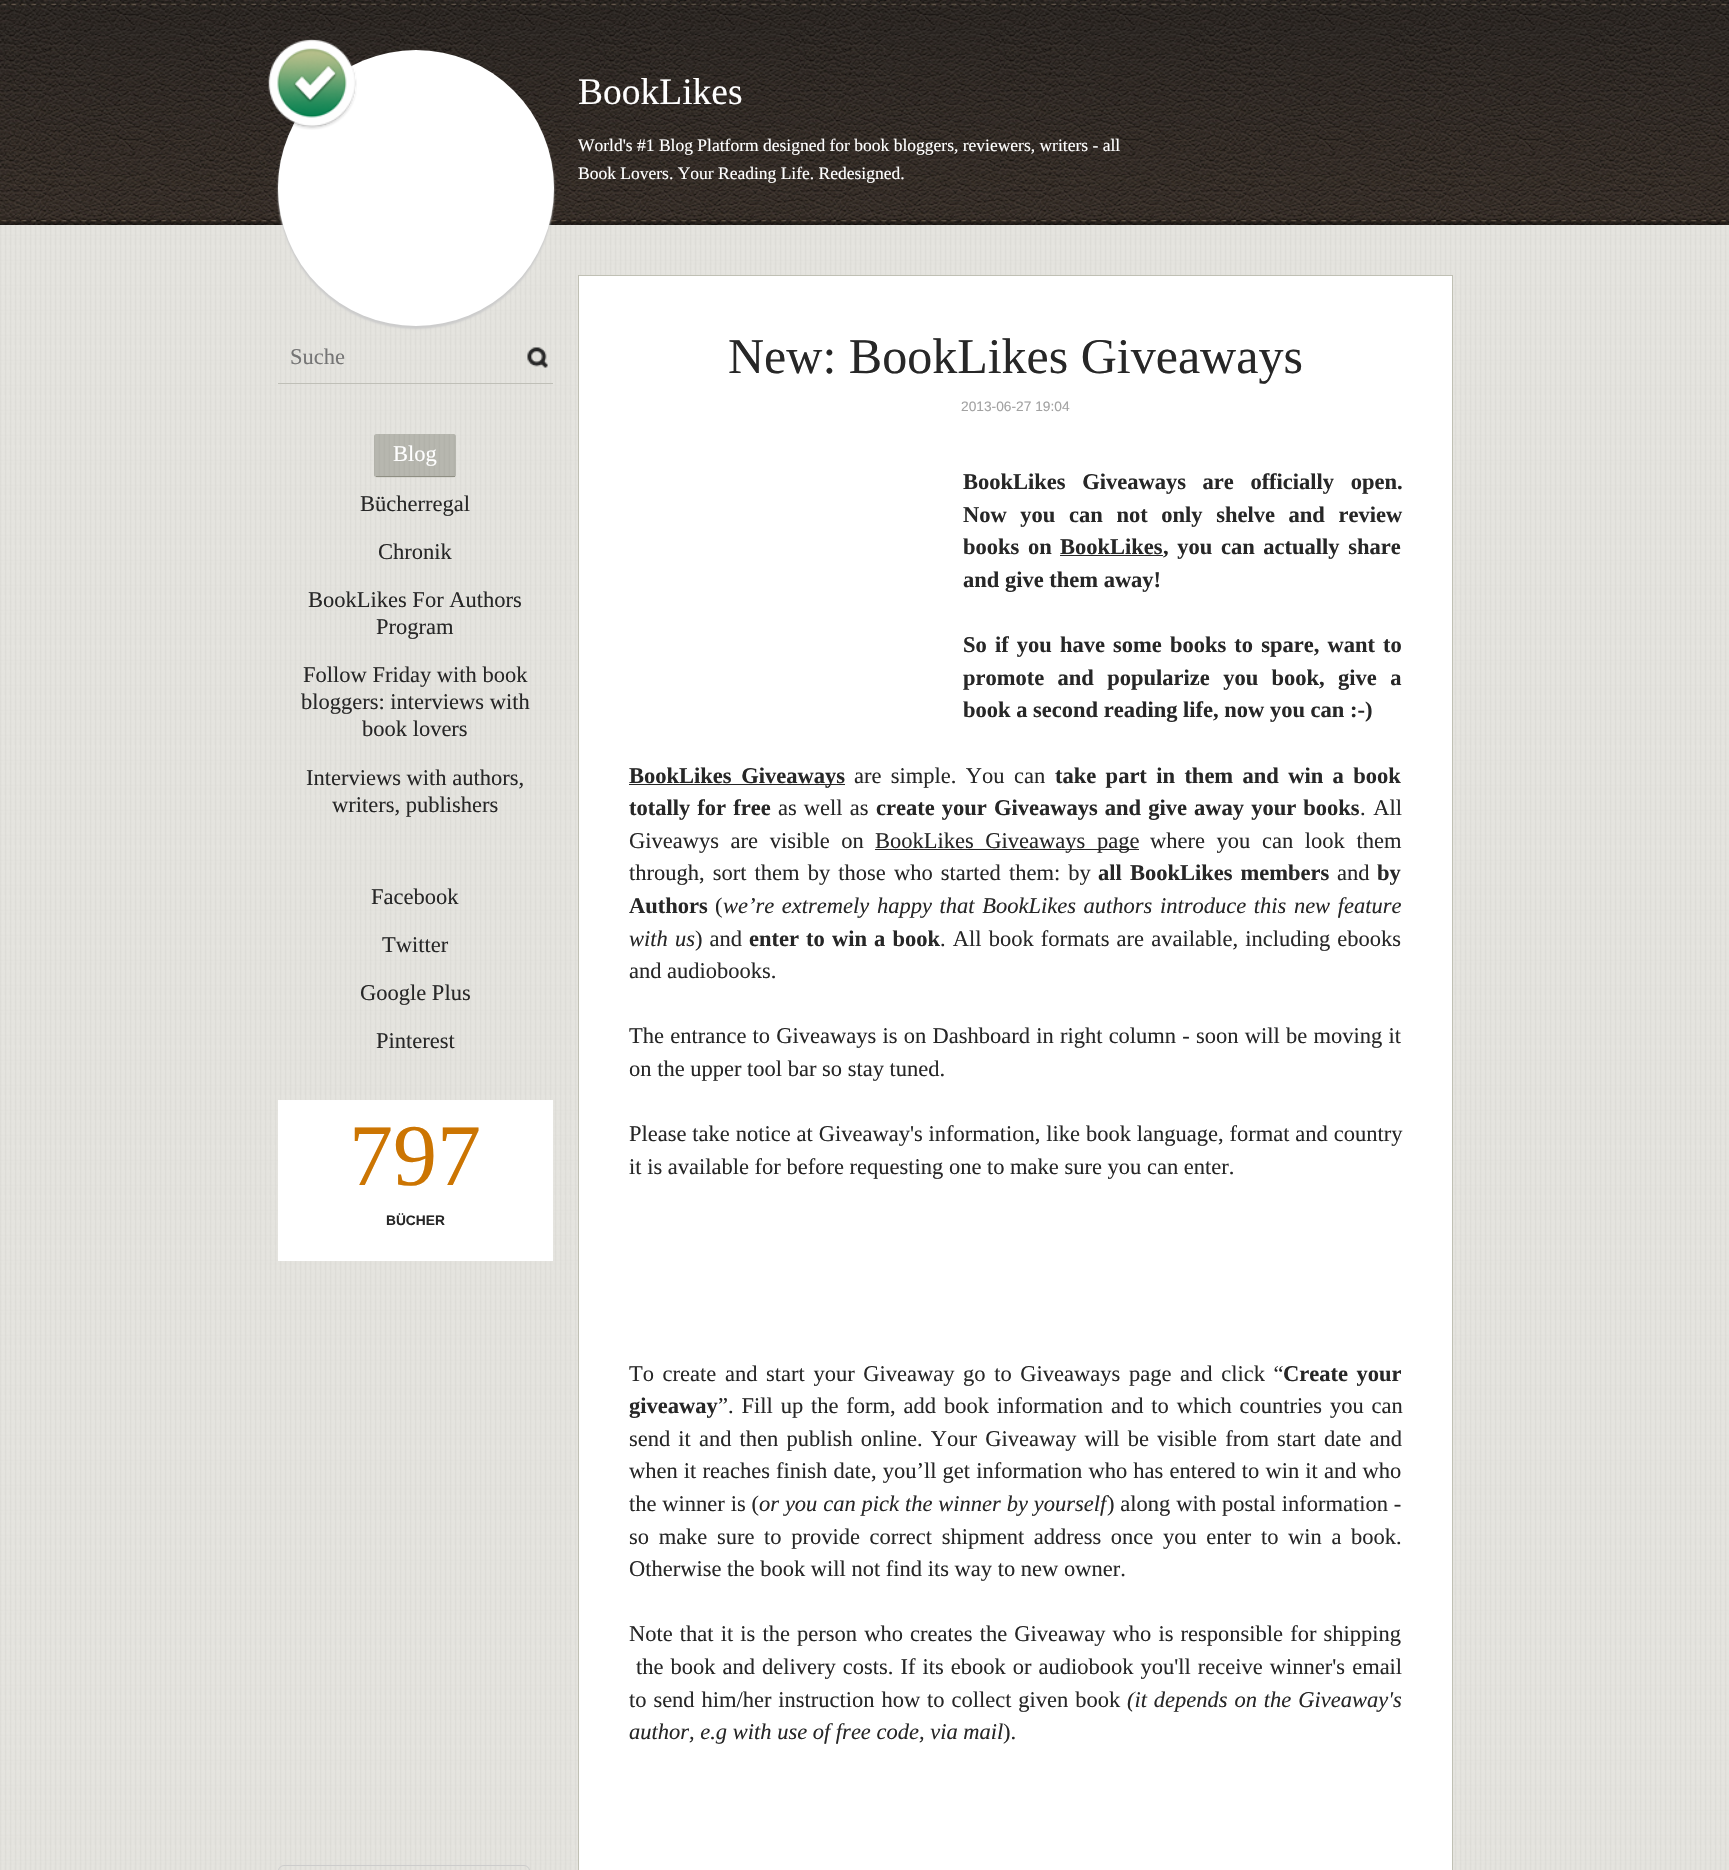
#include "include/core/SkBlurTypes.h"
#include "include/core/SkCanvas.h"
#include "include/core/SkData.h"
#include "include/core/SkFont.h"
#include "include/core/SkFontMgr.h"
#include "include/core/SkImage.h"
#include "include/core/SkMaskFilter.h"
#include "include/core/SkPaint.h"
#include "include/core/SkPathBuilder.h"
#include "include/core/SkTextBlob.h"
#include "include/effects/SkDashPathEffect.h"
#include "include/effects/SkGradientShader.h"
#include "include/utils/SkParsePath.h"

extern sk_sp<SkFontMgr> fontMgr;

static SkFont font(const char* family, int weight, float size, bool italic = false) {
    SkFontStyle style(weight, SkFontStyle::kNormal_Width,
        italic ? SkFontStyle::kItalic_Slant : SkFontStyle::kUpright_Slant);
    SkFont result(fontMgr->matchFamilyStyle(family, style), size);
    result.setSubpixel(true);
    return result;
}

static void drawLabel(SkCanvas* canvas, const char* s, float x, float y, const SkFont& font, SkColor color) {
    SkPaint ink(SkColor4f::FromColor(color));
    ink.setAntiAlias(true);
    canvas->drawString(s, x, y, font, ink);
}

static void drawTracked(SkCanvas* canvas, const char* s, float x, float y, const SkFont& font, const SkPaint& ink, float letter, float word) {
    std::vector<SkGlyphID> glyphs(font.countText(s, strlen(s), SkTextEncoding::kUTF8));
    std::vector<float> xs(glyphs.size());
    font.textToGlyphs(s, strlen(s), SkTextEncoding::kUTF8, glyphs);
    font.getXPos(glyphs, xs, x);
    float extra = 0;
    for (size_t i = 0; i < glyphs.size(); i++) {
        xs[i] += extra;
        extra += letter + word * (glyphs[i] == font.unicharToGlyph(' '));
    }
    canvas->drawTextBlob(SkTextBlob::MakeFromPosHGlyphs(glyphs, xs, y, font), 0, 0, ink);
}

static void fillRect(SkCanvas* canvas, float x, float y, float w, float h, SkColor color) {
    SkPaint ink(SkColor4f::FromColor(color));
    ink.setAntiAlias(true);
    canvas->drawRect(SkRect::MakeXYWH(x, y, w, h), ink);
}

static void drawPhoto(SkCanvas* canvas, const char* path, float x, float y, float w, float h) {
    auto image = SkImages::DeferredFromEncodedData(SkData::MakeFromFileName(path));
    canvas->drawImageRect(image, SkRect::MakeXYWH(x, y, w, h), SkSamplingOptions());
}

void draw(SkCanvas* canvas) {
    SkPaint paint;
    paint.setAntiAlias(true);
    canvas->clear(0xFFFFFFFF);
    drawPhoto(canvas, "assets/img1.png", 0, 225, 1729, 1645);
    drawPhoto(canvas, "assets/img2.png", 0, 0, 1729, 225);
    paint.setColor(0xFFCCCCCC);
    paint.setMaskFilter(SkMaskFilter::MakeBlur(kNormal_SkBlurStyle, 1));
    canvas->drawRoundRect(SkRect::MakeXYWH(278, 53, 276, 276), 138, 138, paint);
    paint.setMaskFilter(nullptr);
    paint.setColor(0xFFFFFFFF);
    canvas->drawCircle(416, 188, 138, paint);
    drawPhoto(canvas, "assets/img3.png", 268, 39, 89, 91);
    SkFont font1 = font("Liberation Serif", 400, 37.5f);
    drawLabel(canvas, "BookLikes", 578, 104, font1, 0xFFFFFFFF);
    SkFont font2 = font("Liberation Serif", 400, 17.5f);
    drawLabel(canvas, "World's #1 Blog Platform designed for book bloggers, reviewers, writers - all", 578, 151, font2, 0xFFFFFFFF);
    drawLabel(canvas, "Book Lovers. Your Reading Life. Redesigned.", 578, 179, font2, 0xFFFFFFFF);
    fillRect(canvas, 278, 383, 275, 1, 0xFFBFBFB7);
    SkFont font3 = font("Liberation Serif", 400, 22.5f);
    drawLabel(canvas, "Suche", 290, 364, font3, 0xFF757575);
    drawPhoto(canvas, "assets/img4.png", 527, 347, 21, 21);
    drawPhoto(canvas, "assets/img5.png", 374, 434, 82, 44);
    fillRect(canvas, 376, 476, 79, 1, 0xFF8F8F83);
    drawLabel(canvas, "Blog", 393, 461, font3, 0xFFFFFFFF);
    drawLabel(canvas, "Bücherregal", 360, 511, font3, 0xFF272727);
    drawLabel(canvas, "Chronik", 378, 559, font3, 0xFF272727);
    drawLabel(canvas, "BookLikes For Authors", 308, 607, font3, 0xFF272727);
    drawLabel(canvas, "Program", 376, 634, font3, 0xFF272727);
    drawLabel(canvas, "Follow Friday with book", 303, 682, font3, 0xFF272727);
    drawLabel(canvas, "bloggers: interviews with", 301, 709, font3, 0xFF272727);
    drawLabel(canvas, "book lovers", 362, 736, font3, 0xFF272727);
    drawLabel(canvas, "Interviews with authors,", 306, 785, font3, 0xFF272727);
    drawLabel(canvas, "writers, publishers", 332, 812, font3, 0xFF272727);
    drawLabel(canvas, "Facebook", 371, 904, font3, 0xFF272727);
    drawLabel(canvas, "Twitter", 382, 952, font3, 0xFF272727);
    drawLabel(canvas, "Google Plus", 360, 1000, font3, 0xFF272727);
    drawLabel(canvas, "Pinterest", 376, 1048, font3, 0xFF272727);
    fillRect(canvas, 278, 1100, 275, 161, 0xFFFFFFFF);
    SkFont font4 = font("Liberation Serif", 400, 88);
    drawLabel(canvas, "797", 349, 1185, font4, 0xFFCC7502);
    SkFont font5 = font("Liberation Sans", 700, 13.75f);
    drawLabel(canvas, "BÜCHER", 386, 1225, font5, 0xFF272727);
    paint.setStroke(true);
    paint.setStrokeWidth(1);
    paint.setColor(0xFFCCCCCC);
    canvas->drawRoundRect(SkRect::MakeXYWH(278.5f, 1865.5f, 251, 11), 5.5f, 5.5f, paint);
    paint.setStroke(false);
    paint.setColor(0xFFFFFFFF);
    canvas->drawRect(SkRect::MakeXYWH(578.5f, 275.5f, 874, 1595), paint);
    paint.setStroke(true);
    paint.setColor(0xFFC0C0B4);
    canvas->drawRect(SkRect::MakeXYWH(578.5f, 275.5f, 874, 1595), paint);
    SkFont font6 = font("Liberation Serif", 400, 50);
    drawLabel(canvas, "New: BookLikes Giveaways", 728, 373, font6, 0xFF272727);
    SkFont font7 = font("Liberation Sans", 400, 13.75f);
    drawLabel(canvas, "2013-06-27 19:04", 961, 411, font7, 0xFFA2A2A2);
    SkFont font8 = font("Liberation Serif", 700, 22.5f);
    paint.setStroke(false);
    paint.setColor(0xFF272727);
    drawTracked(canvas, "BookLikes Giveaways are officially open.", 963, 489, font8, paint, 0, 11);
    drawTracked(canvas, "Now you can not only shelve and review", 963, 522, font8, paint, 0, 8);
    drawTracked(canvas, "books on", 963, 554, font8, paint, 0, 3);
    drawLabel(canvas, "BookLikes", 1060, 554, font8, 0xFF272727);
    drawTracked(canvas, ", you can actually share", 1163, 554, font8, paint, 0, 3);
    fillRect(canvas, 1060, 555, 103, 1, 0xFF272727);
    drawLabel(canvas, "and give them away!", 963, 587, font8, 0xFF272727);
    drawTracked(canvas, "So if you have some books to spare, want to", 963, 652, font8, paint, 0, 2.5f);
    drawTracked(canvas, "promote and popularize you book, give a", 963, 685, font8, paint, 0, 7.75f);
    drawLabel(canvas, "book a second reading life, now you can :-)", 963, 717, font8, 0xFF272727);
    fillRect(canvas, 629, 784, 216, 1, 0xFF272727);
    drawTracked(canvas, "BookLikes Giveaways", 629, 783, font8, paint, 0, 4);
    drawTracked(canvas, "are simple. You can", 854, 783, font3, paint, 0, 3.75f);
    drawTracked(canvas, "take part in them and win a book", 1055, 783, font8, paint, 0, 3.75f);
    drawTracked(canvas, "totally for free", 629, 815, font8, paint, 0, 1.5f);
    drawTracked(canvas, "as well as", 778, 815, font3, paint, 0, 1.5f);
    drawTracked(canvas, "create your Giveaways and give away your books", 876, 815, font8, paint, 0, 1.5f);
    drawTracked(canvas, ". All", 1360, 815, font3, paint, 0, 2);
    drawTracked(canvas, "Giveawys are visible on", 629, 848, font3, paint, 0, 6);
    fillRect(canvas, 875, 849, 264, 1, 0xFF272727);
    drawTracked(canvas, "BookLikes Giveaways page", 875, 848, font3, paint, 0, 6);
    drawTracked(canvas, "where you can look them", 1150, 848, font3, paint, 0, 6);
    drawTracked(canvas, "through, sort them by those who started them: by", 629, 880, font3, paint, 0, 2.5f);
    drawTracked(canvas, "all BookLikes members", 1098, 880, font8, paint, 0, 2.5f);
    drawLabel(canvas, "and", 1337, 880, font3, 0xFF272727);
    drawLabel(canvas, "by", 1377, 880, font8, 0xFF272727);
    drawLabel(canvas, "Authors", 629, 913, font8, 0xFF272727);
    drawLabel(canvas, "(", 715, 913, font3, 0xFF272727);
    SkFont font9 = font("Liberation Serif", 400, 22.5f, true);
    drawTracked(canvas, "we’re extremely happy that BookLikes authors introduce this new feature", 723, 913, font9, paint, 0, 2);
    drawTracked(canvas, "with us", 629, 946, font9, paint, 0, 1.5f);
    drawTracked(canvas, ") and", 695, 946, font3, paint, 0, 1.5f);
    drawTracked(canvas, "enter to win a book", 749, 946, font8, paint, 0, 1.5f);
    drawTracked(canvas, ". All book formats are available, including ebooks", 940, 946, font3, paint, 0, 1.5f);
    drawLabel(canvas, "and audiobooks.", 629, 978, font3, 0xFF272727);
    drawTracked(canvas, "The entrance to Giveaways is on Dashboard in right column - soon will be moving it", 629, 1043, font3, paint, 0, 0.6f);
    drawLabel(canvas, "on the upper tool bar so stay tuned.", 629, 1076, font3, 0xFF272727);
    drawTracked(canvas, "Please take notice at Giveaway's information, like book language, format and country", 629, 1141, font3, paint, 0, 0.25f);
    drawLabel(canvas, "it is available for before requesting one to make sure you can enter.", 629, 1174, font3, 0xFF272727);
    drawTracked(canvas, "To create and start your Giveaway go to Giveaways page and click “", 629, 1381, font3, paint, 0, 3);
    drawTracked(canvas, "Create your", 1283, 1381, font8, paint, 0, 3);
    drawLabel(canvas, "giveaway", 629, 1413, font8, 0xFF272727);
    drawTracked(canvas, "”. Fill up the form, add book information and to which countries you can", 718, 1413, font3, paint, 0, 2.25f);
    drawTracked(canvas, "send it and then publish online. Your Giveaway will be visible from start date and", 629, 1446, font3, paint, 0, 2.5f);
    drawTracked(canvas, "when it reaches finish date, you’ll get information who has entered to win it and who", 629, 1478, font3, paint, 0, 0.5f);
    drawTracked(canvas, "the winner is (", 629, 1511, font3, paint, 0, 0.25f);
    drawTracked(canvas, "or you can pick the winner by yourself", 759, 1511, font9, paint, 0, 0.25f);
    drawTracked(canvas, ") along with postal information -", 1107, 1511, font3, paint, 0, 0.25f);
    drawTracked(canvas, "so make sure to provide correct shipment address once you enter to win a book.", 629, 1544, font3, paint, 0, 4);
    drawLabel(canvas, "Otherwise the book will not find its way to new owner.", 629, 1576, font3, 0xFF272727);
    drawTracked(canvas, "Note that it is the person who creates the Giveaway who is responsible for shipping", 629, 1641, font3, paint, 0, 1.5f);
    drawTracked(canvas, "the book and delivery costs. If its ebook or audiobook you'll receive winner's email", 636, 1674, font3, paint, 0, 1.4f);
    drawTracked(canvas, "to send him/her instruction how to collect given book", 629, 1707, font3, paint, 0, 1.25f);
    drawTracked(canvas, "(it depends on the Giveaway's", 1127, 1707, font9, paint, 0, 1.25f);
    drawLabel(canvas, "author, e.g with use of free code, via mail", 629, 1739, font9, 0xFF272727);
    drawLabel(canvas, ").", 1003, 1739, font3, 0xFF272727);
}
